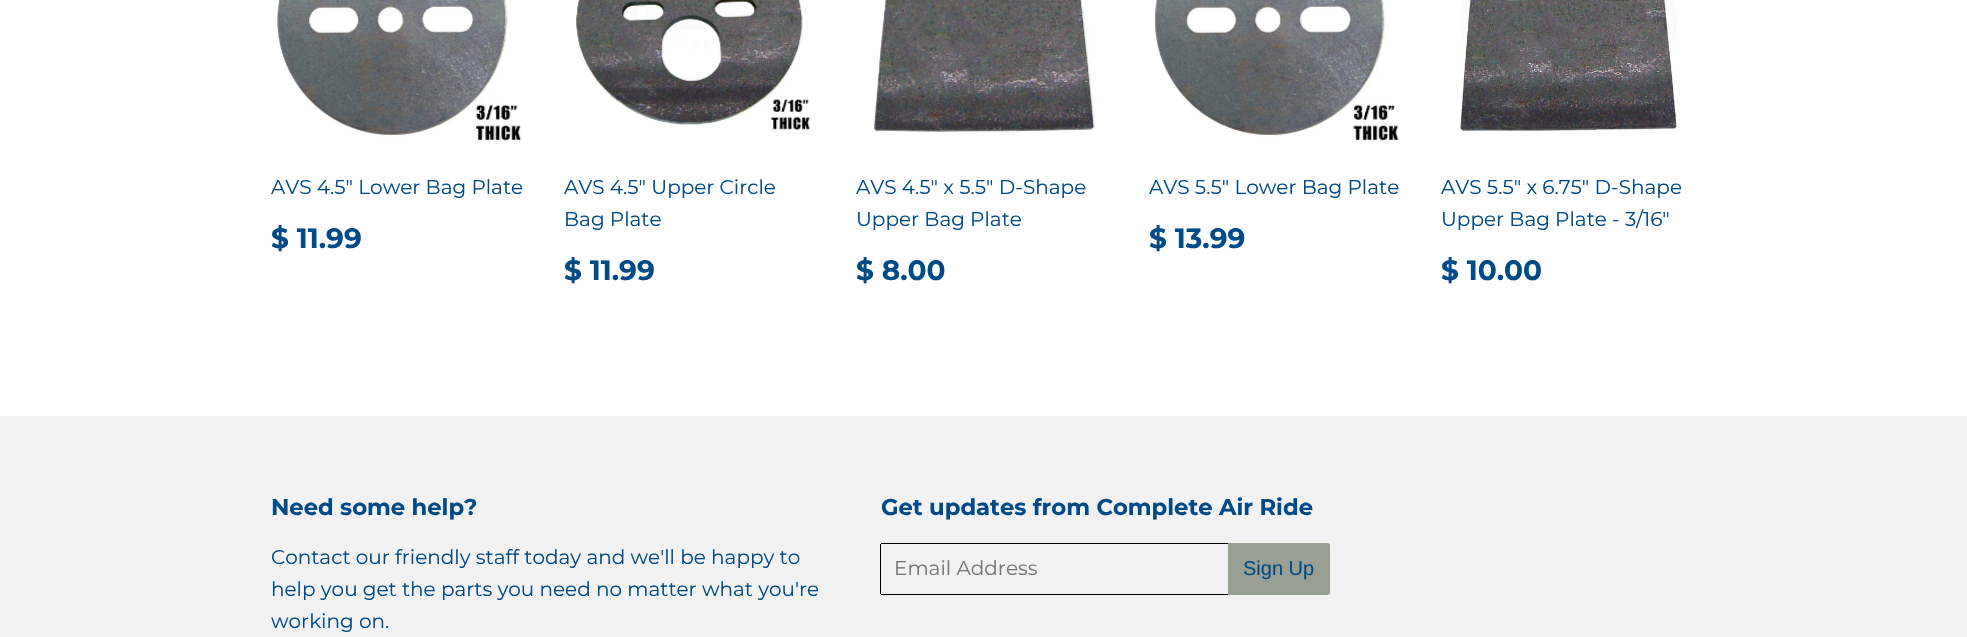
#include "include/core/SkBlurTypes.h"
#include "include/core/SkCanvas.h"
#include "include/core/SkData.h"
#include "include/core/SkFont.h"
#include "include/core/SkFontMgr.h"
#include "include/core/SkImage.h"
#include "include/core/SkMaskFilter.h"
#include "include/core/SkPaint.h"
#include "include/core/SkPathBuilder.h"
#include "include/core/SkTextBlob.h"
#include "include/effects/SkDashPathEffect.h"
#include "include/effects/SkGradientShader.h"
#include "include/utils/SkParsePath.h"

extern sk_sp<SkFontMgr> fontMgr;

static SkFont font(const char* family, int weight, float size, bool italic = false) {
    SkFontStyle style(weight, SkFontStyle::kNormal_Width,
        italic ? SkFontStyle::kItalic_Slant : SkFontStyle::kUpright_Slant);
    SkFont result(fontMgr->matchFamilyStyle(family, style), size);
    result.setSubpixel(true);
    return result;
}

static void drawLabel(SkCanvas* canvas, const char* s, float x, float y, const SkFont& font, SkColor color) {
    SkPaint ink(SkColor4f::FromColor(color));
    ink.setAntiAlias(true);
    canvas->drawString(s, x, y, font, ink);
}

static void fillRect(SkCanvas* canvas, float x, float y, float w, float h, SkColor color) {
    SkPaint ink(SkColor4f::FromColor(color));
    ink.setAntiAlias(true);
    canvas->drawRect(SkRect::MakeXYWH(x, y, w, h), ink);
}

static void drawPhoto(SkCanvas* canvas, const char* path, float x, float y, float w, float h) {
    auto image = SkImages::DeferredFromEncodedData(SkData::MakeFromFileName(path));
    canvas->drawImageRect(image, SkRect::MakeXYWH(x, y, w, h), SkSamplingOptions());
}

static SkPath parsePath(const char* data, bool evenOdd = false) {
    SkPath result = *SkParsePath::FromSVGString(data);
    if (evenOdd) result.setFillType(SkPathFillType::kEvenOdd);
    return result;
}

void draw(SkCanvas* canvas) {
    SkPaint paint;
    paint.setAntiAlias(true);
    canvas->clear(0xFFFFFFFF);
    drawPhoto(canvas, "assets/img1.png", 277, 0, 245, 141);
    SkFont font1 = font("Montserrat", 400, 20);
    drawLabel(canvas, "AVS 4.5\" Lower Bag Plate", 271, 194, font1, 0xFF004A87);
    SkFont font2 = font("Montserrat", 700, 28);
    drawLabel(canvas, "$ 11.99", 271, 248, font2, 0xFF004A87);
    drawPhoto(canvas, "assets/img2.png", 576, 0, 235, 130);
    drawLabel(canvas, "AVS 4.5\" Upper Circle", 564, 194, font1, 0xFF004A87);
    drawLabel(canvas, "Bag Plate", 564, 226, font1, 0xFF004A87);
    drawLabel(canvas, "$ 11.99", 564, 280, font2, 0xFF004A87);
    drawPhoto(canvas, "assets/img3.png", 874, 0, 221, 133);
    drawLabel(canvas, "AVS 4.5\" x 5.5\" D-Shape", 856, 194, font1, 0xFF004A87);
    drawLabel(canvas, "Upper Bag Plate", 856, 226, font1, 0xFF004A87);
    drawLabel(canvas, "$ 8.00", 856, 280, font2, 0xFF004A87);
    drawPhoto(canvas, "assets/img4.png", 1154, 0, 245, 141);
    drawLabel(canvas, "AVS 5.5\" Lower Bag Plate", 1149, 194, font1, 0xFF004A87);
    drawLabel(canvas, "$ 13.99", 1149, 248, font2, 0xFF004A87);
    drawPhoto(canvas, "assets/img5.png", 1460, 0, 217, 132);
    drawLabel(canvas, "AVS 5.5\" x 6.75\" D-Shape", 1441, 194, font1, 0xFF004A87);
    drawLabel(canvas, "Upper Bag Plate - 3/16\"", 1441, 226, font1, 0xFF004A87);
    drawLabel(canvas, "$ 10.00", 1441, 280, font2, 0xFF004A87);
    fillRect(canvas, 0, 416, 1967, 221, 0xFFF2F2F2);
    SkFont font3 = font("Montserrat", 700, 22.7f);
    drawLabel(canvas, "Need some help?", 271, 515, font3, 0xFF004A87);
    drawLabel(canvas, "Contact our friendly staff today and we'll be happy to", 271, 564, font1, 0xFF004A87);
    drawLabel(canvas, "help you get the parts you need no matter what you're", 271, 596, font1, 0xFF004A87);
    drawLabel(canvas, "working on.", 271, 628, font1, 0xFF004A87);
    drawLabel(canvas, "Get updates from Complete Air Ride", 881, 515, font3, 0xFF004A87);
    fillRect(canvas, 881, 543, 347, 1, 0xFF000000);
    fillRect(canvas, 881, 594, 347, 1, 0xFF000000);
    fillRect(canvas, 880, 544, 1, 50, 0xFF000000);
    drawLabel(canvas, "Email Address", 894, 575, font1, 0xFF757575);
    paint.setColor(0xFF97A093);
    canvas->drawPath(parsePath("M1228 543H1327.5C1329 543 1330 544 1330 545.5V592.5C1330 594 1329 595 1327.5 595H1228Z"), paint);
    SkFont font4 = font("Liberation Sans", 400, 20);
    drawLabel(canvas, "Sign Up", 1243, 575, font4, 0xFF004A87);
}
